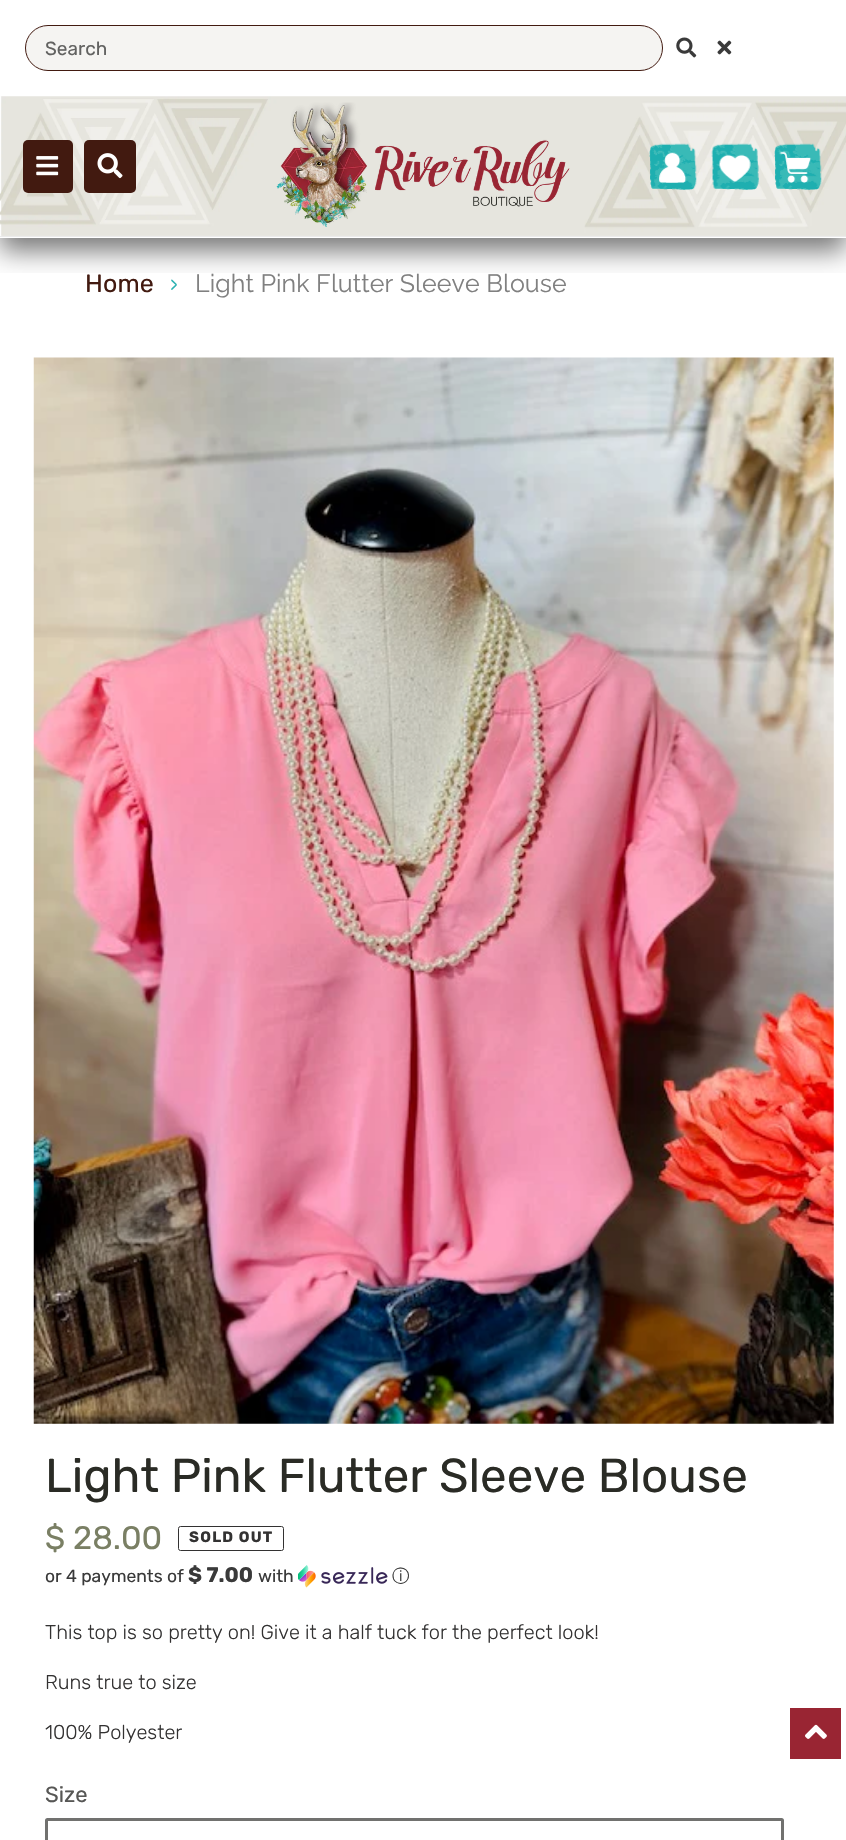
#include "include/core/SkBlurTypes.h"
#include "include/core/SkCanvas.h"
#include "include/core/SkData.h"
#include "include/core/SkFont.h"
#include "include/core/SkFontMgr.h"
#include "include/core/SkImage.h"
#include "include/core/SkMaskFilter.h"
#include "include/core/SkPaint.h"
#include "include/core/SkPathBuilder.h"
#include "include/core/SkTextBlob.h"
#include "include/effects/SkDashPathEffect.h"
#include "include/effects/SkGradientShader.h"
#include "include/utils/SkParsePath.h"

extern sk_sp<SkFontMgr> fontMgr;

static SkFont font(const char* family, int weight, float size, bool italic = false) {
    SkFontStyle style(weight, SkFontStyle::kNormal_Width,
        italic ? SkFontStyle::kItalic_Slant : SkFontStyle::kUpright_Slant);
    SkFont result(fontMgr->matchFamilyStyle(family, style), size);
    result.setSubpixel(true);
    return result;
}

static void drawLabel(SkCanvas* canvas, const char* s, float x, float y, const SkFont& font, SkColor color) {
    SkPaint ink(SkColor4f::FromColor(color));
    ink.setAntiAlias(true);
    canvas->drawString(s, x, y, font, ink);
}

static void drawTracked(SkCanvas* canvas, const char* s, float x, float y, const SkFont& font, const SkPaint& ink, float letter, float word) {
    std::vector<SkGlyphID> glyphs(font.countText(s, strlen(s), SkTextEncoding::kUTF8));
    std::vector<float> xs(glyphs.size());
    font.textToGlyphs(s, strlen(s), SkTextEncoding::kUTF8, glyphs);
    font.getXPos(glyphs, xs, x);
    float extra = 0;
    for (size_t i = 0; i < glyphs.size(); i++) {
        xs[i] += extra;
        extra += letter + word * (glyphs[i] == font.unicharToGlyph(' '));
    }
    canvas->drawTextBlob(SkTextBlob::MakeFromPosHGlyphs(glyphs, xs, y, font), 0, 0, ink);
}

static void fillRect(SkCanvas* canvas, float x, float y, float w, float h, SkColor color) {
    SkPaint ink(SkColor4f::FromColor(color));
    ink.setAntiAlias(true);
    canvas->drawRect(SkRect::MakeXYWH(x, y, w, h), ink);
}

static void fillRRect(SkCanvas* canvas, float x, float y, float w, float h, float radius, SkColor color) {
    SkPaint ink(SkColor4f::FromColor(color));
    ink.setAntiAlias(true);
    canvas->drawRoundRect(SkRect::MakeXYWH(x, y, w, h), radius, radius, ink);
}

static void drawPhoto(SkCanvas* canvas, const char* path, float x, float y, float w, float h) {
    auto image = SkImages::DeferredFromEncodedData(SkData::MakeFromFileName(path));
    canvas->drawImageRect(image, SkRect::MakeXYWH(x, y, w, h), SkSamplingOptions());
}

void draw(SkCanvas* canvas) {
    SkPaint paint;
    paint.setAntiAlias(true);
    canvas->clear(0xFFFFFFFF);
    canvas->save();
    canvas->clipRect(SkRect::MakeXYWH(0, 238, 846, 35));
    paint.setColor(0x87000000);
    paint.setMaskFilter(SkMaskFilter::MakeBlur(kNormal_SkBlurStyle, 12.5f));
    canvas->drawRect(SkRect::MakeXYWH(0, 14, 846, 237), paint);
    paint.setMaskFilter(nullptr);
    canvas->restore();
    paint.setColor(0xFFF5F4F2);
    canvas->drawRoundRect(SkRect::MakeXYWH(25.5f, 25.5f, 637, 45), 22.5f, 22.5f, paint);
    paint.setStroke(true);
    paint.setStrokeWidth(1);
    paint.setColor(0xFF421A10);
    canvas->drawRoundRect(SkRect::MakeXYWH(25.5f, 25.5f, 637, 45), 22.5f, 22.5f, paint);
    SkFont font1 = font("Rubik", 400, 19);
    drawLabel(canvas, "Search", 45, 55, font1, 0xFF626261);
    drawPhoto(canvas, "assets/img1.png", 676, 37, 21, 21);
    drawPhoto(canvas, "assets/img2.png", 717, 40, 15, 15);
    fillRect(canvas, 0, 237, 846, 1, 0xFFFFFFFF);
    drawPhoto(canvas, "assets/img3.png", 0, 96, 846, 140);
    fillRect(canvas, 0, 236, 846, 1, 0xFFEBEBEB);
    fillRRect(canvas, 23, 140, 50, 53, 5, 0xFF421A10);
    drawPhoto(canvas, "assets/img4.png", 36, 156, 23, 20);
    fillRRect(canvas, 84, 140, 52, 53, 5, 0xFF421A10);
    drawPhoto(canvas, "assets/img5.png", 97, 153, 26, 26);
    drawPhoto(canvas, "assets/img6.png", 276, 102, 294, 125);
    drawPhoto(canvas, "assets/img7.png", 649, 143, 48, 47);
    drawPhoto(canvas, "assets/img8.png", 711, 143, 48, 47);
    drawPhoto(canvas, "assets/img9.png", 774, 143, 48, 47);
    SkFont font2 = font("Rubik", 400, 25);
    paint.setStroke(false);
    drawTracked(canvas, "Home", 85, 292, font2, paint, 0.1f, 0);
    SkFont font3 = font("Rubik", 300, 22);
    paint.setColor(0xFF2CB2B2);
    drawTracked(canvas, "›", 170, 292, font3, paint, 0.1f, 0);
    SkFont font4 = font("Raleway", 400, 25);
    paint.setColor(0xFF808080);
    drawTracked(canvas, "Light Pink Flutter Sleeve Blouse", 195, 292, font4, paint, 0.1f, 0);
    drawPhoto(canvas, "assets/img10.png", 33, 357, 801, 1067);
    SkFont font5 = font("Rubik", 400, 47.5f);
    drawLabel(canvas, "Light Pink Flutter Sleeve Blouse", 45, 1492, font5, 0xFF2A2B25);
    SkFont font6 = font("Rubik", 400, 32.5f);
    drawLabel(canvas, "$ 28.00", 45, 1549, font6, 0xFF7A7F64);
    paint.setStroke(true);
    paint.setColor(0xFF333232);
    canvas->drawRoundRect(SkRect::MakeXYWH(178.5f, 1526.5f, 105, 24), 2, 2, paint);
    SkFont font7 = font("Rubik", 700, 15);
    paint.setStroke(false);
    drawTracked(canvas, "SOLD OUT", 189, 1542, font7, paint, 1.25f, 0);
    SkFont font8 = font("Rubik", 400, 17.5f);
    drawLabel(canvas, "or 4 payments of", 45, 1582, font8, 0xFF3A3A3A);
    SkFont font9 = font("Rubik", 700, 21);
    drawLabel(canvas, "$ 7.00", 188, 1582, font9, 0xFF3A3A3A);
    drawLabel(canvas, "with", 258, 1582, font8, 0xFF3A3A3A);
    drawPhoto(canvas, "assets/img11.png", 298, 1565, 90, 23);
    SkFont font10 = font("WenQuanYi Zen Hei", 500, 17.5f);
    drawLabel(canvas, "ⓘ", 392, 1582, font10, 0xFF3A3A3A);
    SkFont font11 = font("Rubik", 300, 20);
    drawLabel(canvas, "This top is so pretty on! Give it a half tuck for the perfect look!", 45, 1639, font11, 0xFF333232);
    drawLabel(canvas, "Runs true to size", 45, 1689, font11, 0xFF333232);
    drawLabel(canvas, "100% Polyester", 45, 1739, font11, 0xFF333232);
    SkFont font12 = font("Rubik", 400, 22);
    drawLabel(canvas, "Size", 45, 1802, font12, 0xFF575755);
    paint.setStroke(true);
    paint.setStrokeWidth(3);
    paint.setColor(0xFF71716F);
    canvas->drawRoundRect(SkRect::MakeXYWH(46.5f, 1819.5f, 736, 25), 1, 1, paint);
    fillRect(canvas, 790, 1708, 51, 51, 0xFF992533);
    drawPhoto(canvas, "assets/img12.png", 805, 1724, 22, 15);
}
